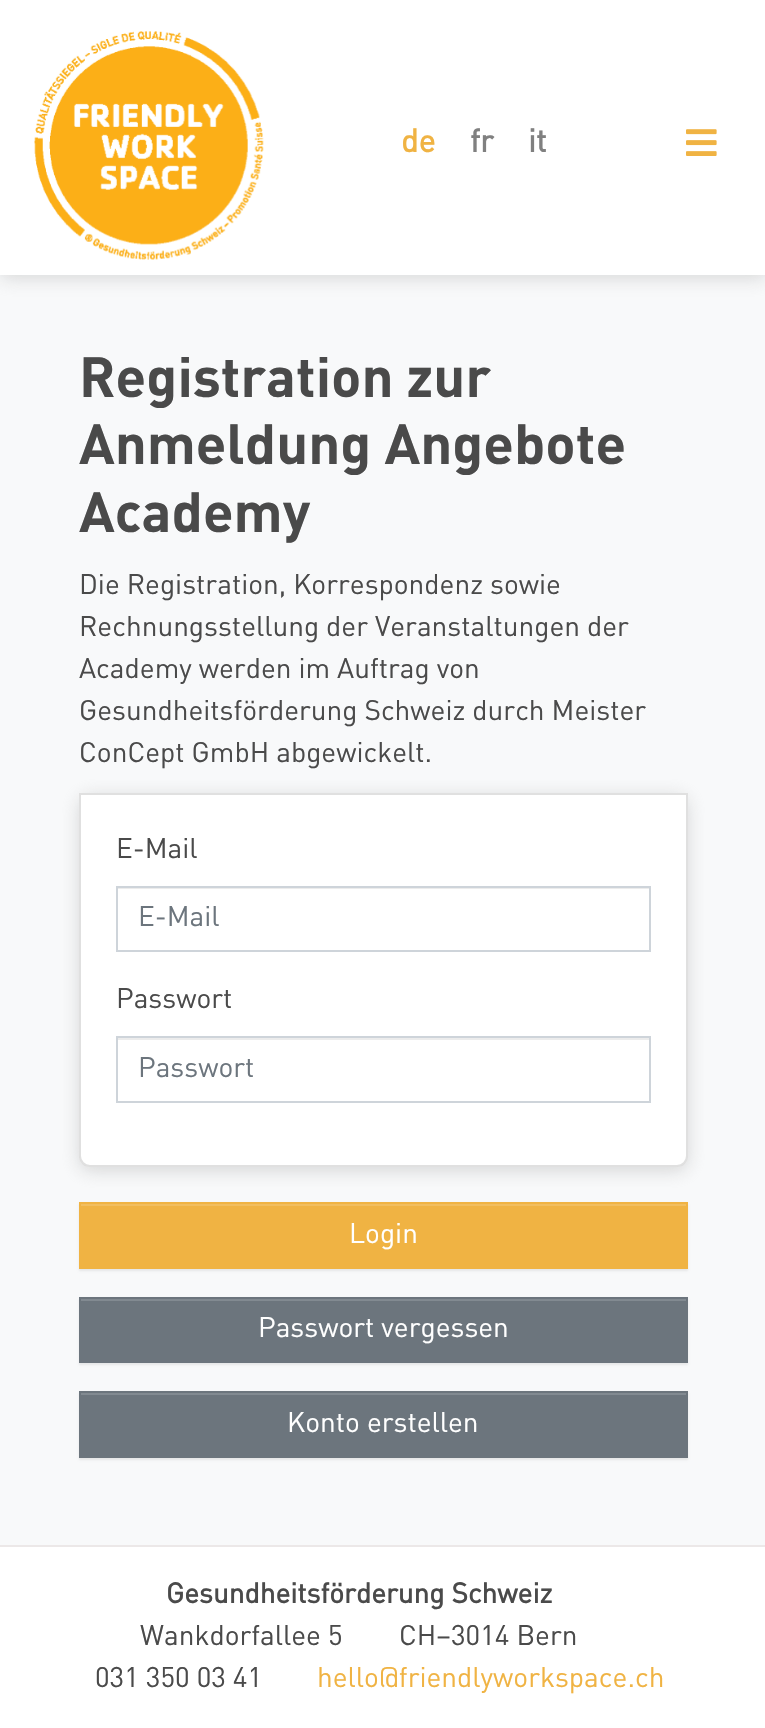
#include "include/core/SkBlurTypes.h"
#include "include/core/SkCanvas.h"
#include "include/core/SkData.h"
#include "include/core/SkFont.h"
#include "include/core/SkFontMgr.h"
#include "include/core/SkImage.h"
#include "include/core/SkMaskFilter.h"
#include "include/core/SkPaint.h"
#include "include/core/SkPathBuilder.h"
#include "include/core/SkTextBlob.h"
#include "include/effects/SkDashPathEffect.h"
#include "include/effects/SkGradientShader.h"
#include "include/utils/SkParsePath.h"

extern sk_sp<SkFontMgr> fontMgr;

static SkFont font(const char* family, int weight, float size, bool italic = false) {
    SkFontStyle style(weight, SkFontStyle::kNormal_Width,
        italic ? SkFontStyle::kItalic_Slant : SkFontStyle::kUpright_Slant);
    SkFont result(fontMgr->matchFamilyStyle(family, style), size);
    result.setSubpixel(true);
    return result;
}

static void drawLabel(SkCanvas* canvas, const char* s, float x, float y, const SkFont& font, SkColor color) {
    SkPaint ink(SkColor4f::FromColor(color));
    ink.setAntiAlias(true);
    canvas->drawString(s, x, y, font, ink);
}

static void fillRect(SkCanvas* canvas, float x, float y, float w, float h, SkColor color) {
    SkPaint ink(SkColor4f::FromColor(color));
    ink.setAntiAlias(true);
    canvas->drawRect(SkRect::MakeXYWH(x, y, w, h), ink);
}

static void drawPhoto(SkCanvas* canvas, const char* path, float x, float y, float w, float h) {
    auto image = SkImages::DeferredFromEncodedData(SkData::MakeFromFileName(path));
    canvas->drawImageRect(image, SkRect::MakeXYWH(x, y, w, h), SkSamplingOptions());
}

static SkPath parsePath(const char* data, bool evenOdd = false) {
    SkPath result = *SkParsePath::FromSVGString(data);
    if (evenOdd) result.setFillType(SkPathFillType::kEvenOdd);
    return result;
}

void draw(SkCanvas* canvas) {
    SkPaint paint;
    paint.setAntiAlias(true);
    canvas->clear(0xFFF8F9FA);
    paint.setColor(0x80B4B4B4);
    paint.setMaskFilter(SkMaskFilter::MakeBlur(kNormal_SkBlurStyle, 9));
    canvas->drawRect(SkRect::MakeXYWH(0, 4, 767, 274), paint);
    paint.setMaskFilter(nullptr);
    fillRect(canvas, 0, 0, 765, 275, 0xFFFFFFFF);
    drawPhoto(canvas, "assets/img1.png", 34, 31, 230, 229);
    SkFont font1 = font("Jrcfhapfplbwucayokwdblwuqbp", 700, 32);
    drawLabel(canvas, "de", 401, 152, font1, 0xFFF0B343);
    drawLabel(canvas, "fr", 470, 152, font1, 0xFF808080);
    drawLabel(canvas, "it", 528, 152, font1, 0xFF808080);
    drawPhoto(canvas, "assets/img2.png", 686, 129, 31, 27);
    SkFont font2 = font("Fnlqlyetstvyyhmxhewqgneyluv", 700, 56);
    drawLabel(canvas, "Registration zur", 79, 397, font2, 0xFF4A4A4A);
    drawLabel(canvas, "Anmeldung Angebote", 79, 464, font2, 0xFF4A4A4A);
    drawLabel(canvas, "Academy", 79, 532, font2, 0xFF4A4A4A);
    SkFont font3 = font("Jrcfhapfplbwucayokwdblwuqbp", 400, 28);
    drawLabel(canvas, "Die Registration, Korrespondenz sowie", 79, 594, font3, 0xFF4A4A4A);
    drawLabel(canvas, "Rechnungsstellung der Veranstaltungen der", 79, 636, font3, 0xFF4A4A4A);
    drawLabel(canvas, "Academy werden im Auftrag von", 79, 678, font3, 0xFF4A4A4A);
    drawLabel(canvas, "Gesundheitsförderung Schweiz durch Meister", 79, 720, font3, 0xFF4A4A4A);
    drawLabel(canvas, "ConCept GmbH abgewickelt.", 79, 762, font3, 0xFF4A4A4A);
    paint.setMaskFilter(SkMaskFilter::MakeBlur(kNormal_SkBlurStyle, 9));
    canvas->drawRoundRect(SkRect::MakeXYWH(79, 796, 609, 375), 11, 11, paint);
    paint.setMaskFilter(nullptr);
    paint.setColor(0xFFFFFFFF);
    canvas->drawPath(parsePath("M79 793H688V1156C688 1162 683 1167 677 1167H90C84 1167 79 1162 79 1156Z"), paint);
    paint.setStroke(true);
    paint.setStrokeWidth(2);
    paint.setColor(0x1F000000);
    canvas->drawPath(parsePath("M80 794H687V1156C687 1161.5 682.5 1166 677 1166H90C84.5 1166 80 1161.5 80 1156Z"), paint);
    drawLabel(canvas, "E-Mail", 116, 858, font3, 0xFF4A4A4A);
    fillRect(canvas, 117, 888, 532, 1, 0xFFECECEC);
    paint.setColor(0xFFCED4DA);
    canvas->drawRect(SkRect::MakeXYWH(117, 887, 533, 64), paint);
    drawLabel(canvas, "E-Mail", 138, 926, font3, 0xFF6C757D);
    drawLabel(canvas, "Passwort", 116, 1008, font3, 0xFF4A4A4A);
    fillRect(canvas, 117, 1038, 532, 2, 0xFFECECEC);
    canvas->drawRect(SkRect::MakeXYWH(117, 1037, 533, 65), paint);
    drawLabel(canvas, "Passwort", 138, 1077, font3, 0xFF6C757D);
    paint.setStroke(false);
    paint.setColor(0x12000000);
    paint.setMaskFilter(SkMaskFilter::MakeBlur(kNormal_SkBlurStyle, 1));
    canvas->drawRect(SkRect::MakeXYWH(79, 1204, 609, 67), paint);
    paint.setMaskFilter(nullptr);
    fillRect(canvas, 79, 1202, 609, 67, 0xFFF0B343);
    fillRect(canvas, 81, 1204, 605, 2, 0xFFF2BE5F);
    drawLabel(canvas, "Login", 349, 1243, font3, 0xFFFFFFFF);
    paint.setMaskFilter(SkMaskFilter::MakeBlur(kNormal_SkBlurStyle, 1));
    canvas->drawRect(SkRect::MakeXYWH(79, 1299, 609, 66), paint);
    paint.setMaskFilter(nullptr);
    fillRect(canvas, 79, 1297, 609, 66, 0xFF6C757D);
    fillRect(canvas, 81, 1299, 605, 2, 0xFF828A91);
    drawLabel(canvas, "Passwort vergessen", 258, 1337, font3, 0xFFFFFFFF);
    paint.setMaskFilter(SkMaskFilter::MakeBlur(kNormal_SkBlurStyle, 1));
    canvas->drawRect(SkRect::MakeXYWH(79, 1393, 609, 67), paint);
    paint.setMaskFilter(nullptr);
    fillRect(canvas, 79, 1391, 609, 67, 0xFF6C757D);
    fillRect(canvas, 81, 1393, 605, 2, 0xFF828A91);
    drawLabel(canvas, "Konto erstellen", 287, 1432, font3, 0xFFFFFFFF);
    fillRect(canvas, 0, 1547, 765, 181, 0xFFFFFFFF);
    fillRect(canvas, 0, 1545, 765, 2, 0xFFECE8E8);
    SkFont font4 = font("Jrcfhapfplbwucayokwdblwuqbp", 700, 28);
    drawLabel(canvas, "Gesundheitsförderung Schweiz", 166, 1603, font4, 0xFF4A4A4A);
    drawLabel(canvas, "Wankdorfallee 5", 140, 1645, font3, 0xFF4A4A4A);
    drawLabel(canvas, "CH–3014 Bern", 399, 1645, font3, 0xFF4A4A4A);
    drawLabel(canvas, "031 350 03 41", 95, 1687, font3, 0xFF4A4A4A);
    drawLabel(canvas, "hello@friendlyworkspace.ch", 317, 1687, font3, 0xFFF0B343);
}
